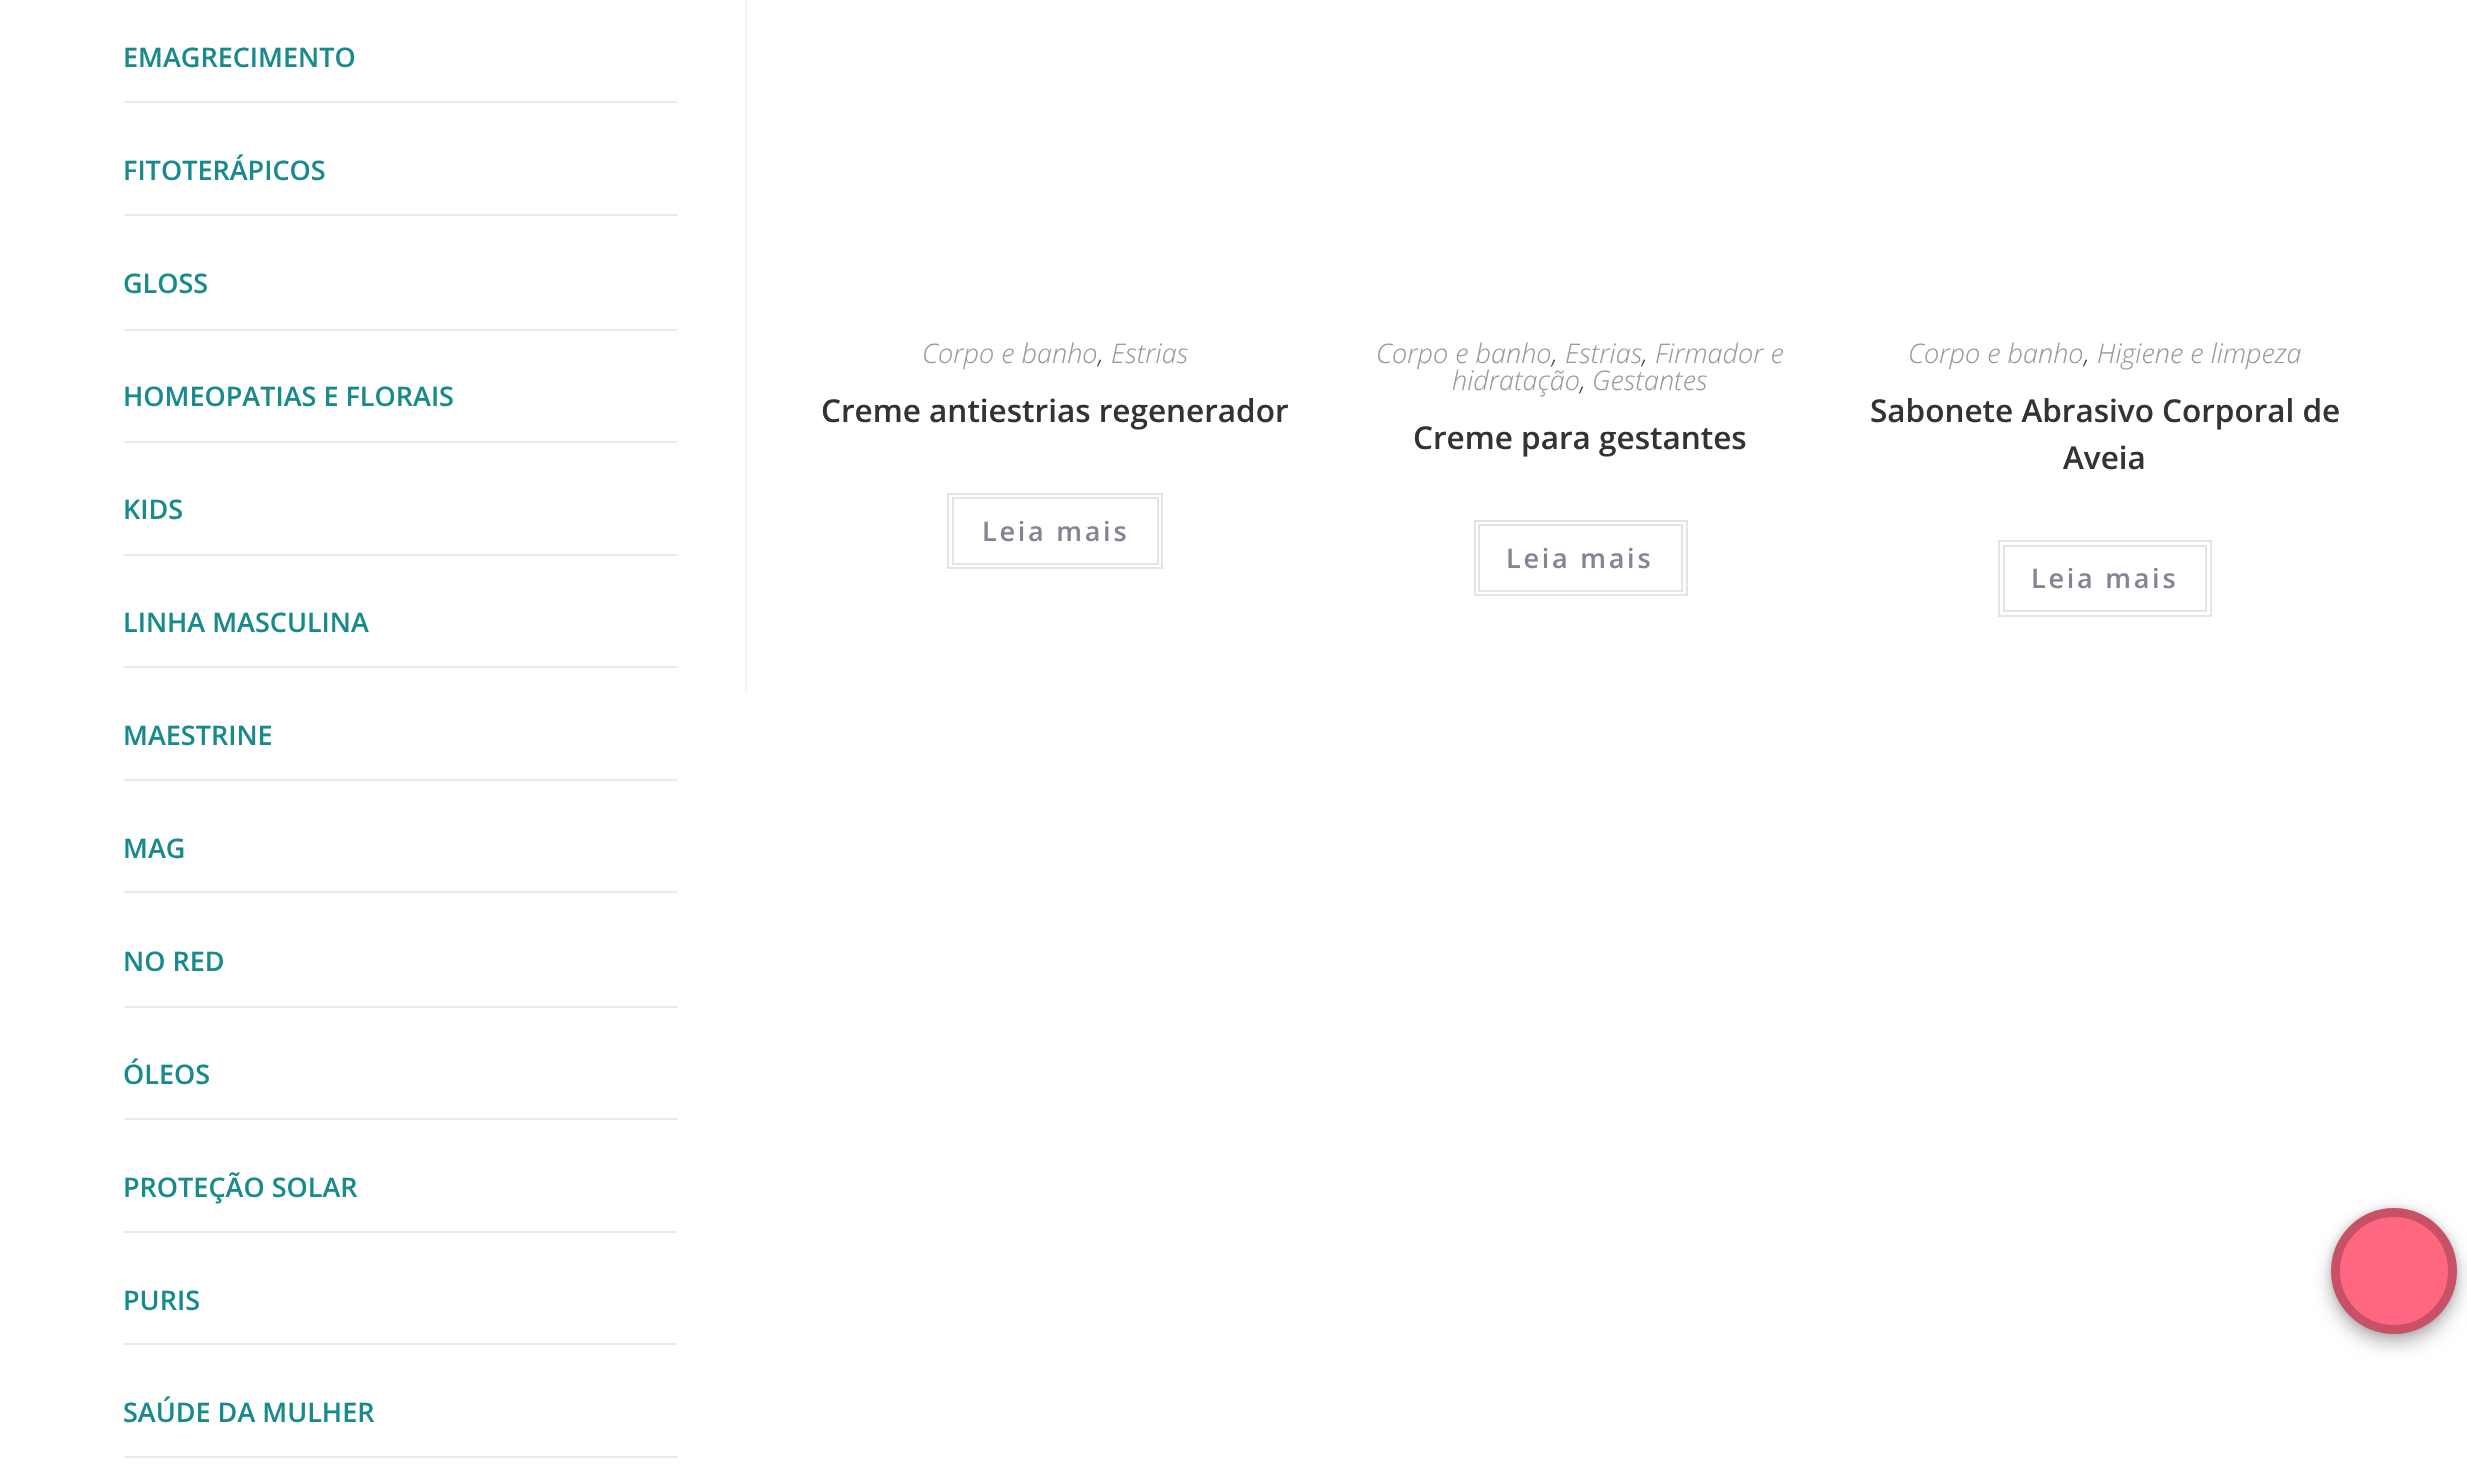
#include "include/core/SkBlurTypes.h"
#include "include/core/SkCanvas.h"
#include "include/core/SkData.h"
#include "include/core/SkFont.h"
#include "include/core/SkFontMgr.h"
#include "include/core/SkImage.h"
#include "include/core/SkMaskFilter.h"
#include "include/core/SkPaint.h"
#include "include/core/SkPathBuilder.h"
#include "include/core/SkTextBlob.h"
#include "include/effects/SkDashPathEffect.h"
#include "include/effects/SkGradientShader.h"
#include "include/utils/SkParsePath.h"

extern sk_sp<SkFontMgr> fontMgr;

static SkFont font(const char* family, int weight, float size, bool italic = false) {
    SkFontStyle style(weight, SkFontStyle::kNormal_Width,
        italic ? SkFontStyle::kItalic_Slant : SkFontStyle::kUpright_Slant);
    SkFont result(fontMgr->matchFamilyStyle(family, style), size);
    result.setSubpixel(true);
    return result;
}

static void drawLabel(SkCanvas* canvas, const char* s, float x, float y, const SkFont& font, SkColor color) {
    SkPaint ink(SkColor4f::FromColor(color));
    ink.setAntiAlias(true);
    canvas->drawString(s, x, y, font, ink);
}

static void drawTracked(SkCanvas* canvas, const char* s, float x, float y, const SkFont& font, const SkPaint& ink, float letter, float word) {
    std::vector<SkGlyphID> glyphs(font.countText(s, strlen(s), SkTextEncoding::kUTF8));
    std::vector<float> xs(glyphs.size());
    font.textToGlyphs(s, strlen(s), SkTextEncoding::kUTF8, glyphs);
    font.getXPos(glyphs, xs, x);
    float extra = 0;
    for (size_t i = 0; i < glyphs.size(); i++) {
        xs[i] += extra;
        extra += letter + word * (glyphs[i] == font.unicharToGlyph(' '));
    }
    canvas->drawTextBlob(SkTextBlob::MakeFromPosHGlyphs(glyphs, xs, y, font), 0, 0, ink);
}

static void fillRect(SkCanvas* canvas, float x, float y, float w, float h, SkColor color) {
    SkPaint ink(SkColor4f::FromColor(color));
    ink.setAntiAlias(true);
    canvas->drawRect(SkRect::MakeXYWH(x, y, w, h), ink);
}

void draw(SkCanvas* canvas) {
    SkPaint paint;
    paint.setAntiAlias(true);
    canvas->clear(0xFFFFFFFF);
    fillRect(canvas, 124, 101, 553, 2, 0xFFEAEAEA);
    SkFont font1 = font("Open Sans", 600, 27);
    drawLabel(canvas, "EMAGRECIMENTO", 123, 67, font1, 0xFF178A8C);
    fillRect(canvas, 124, 214, 553, 2, 0xFFEAEAEA);
    drawLabel(canvas, "FITOTERÁPICOS", 123, 180, font1, 0xFF178A8C);
    fillRect(canvas, 124, 329, 553, 2, 0xFFEAEAEA);
    drawLabel(canvas, "GLOSS", 123, 293, font1, 0xFF178A8C);
    fillRect(canvas, 124, 441, 553, 2, 0xFFEAEAEA);
    drawLabel(canvas, "HOMEOPATIAS E FLORAIS", 123, 406, font1, 0xFF178A8C);
    fillRect(canvas, 124, 554, 553, 2, 0xFFEAEAEA);
    drawLabel(canvas, "KIDS", 123, 519, font1, 0xFF178A8C);
    fillRect(canvas, 124, 666, 553, 2, 0xFFEAEAEA);
    drawLabel(canvas, "LINHA MASCULINA", 123, 632, font1, 0xFF178A8C);
    fillRect(canvas, 124, 779, 553, 2, 0xFFEAEAEA);
    drawLabel(canvas, "MAESTRINE", 123, 745, font1, 0xFF178A8C);
    fillRect(canvas, 124, 891, 553, 2, 0xFFEAEAEA);
    drawLabel(canvas, "MAG", 123, 858, font1, 0xFF178A8C);
    fillRect(canvas, 124, 1006, 553, 2, 0xFFEAEAEA);
    drawLabel(canvas, "NO RED", 123, 971, font1, 0xFF178A8C);
    fillRect(canvas, 124, 1118, 553, 2, 0xFFEAEAEA);
    drawLabel(canvas, "ÓLEOS", 123, 1084, font1, 0xFF178A8C);
    fillRect(canvas, 124, 1231, 553, 2, 0xFFEAEAEA);
    drawLabel(canvas, "PROTEÇÃO SOLAR", 123, 1197, font1, 0xFF178A8C);
    fillRect(canvas, 124, 1343, 553, 2, 0xFFEAEAEA);
    drawLabel(canvas, "PURIS", 123, 1310, font1, 0xFF178A8C);
    fillRect(canvas, 124, 1456, 553, 2, 0xFFEAEAEA);
    drawLabel(canvas, "SAÚDE DA MULHER", 123, 1422, font1, 0xFF178A8C);
    fillRect(canvas, 745, 0, 2, 691, 0xFFF1F1F1);
    SkFont font2 = font("Open Sans", 300, 27, true);
    drawLabel(canvas, "Corpo e banho", 922, 363, font2, 0xFF999999);
    drawLabel(canvas, ",", 1098, 363, font2, 0xFF4A4A4A);
    drawLabel(canvas, "Estrias", 1111, 363, font2, 0xFF999999);
    SkFont font3 = font("Open Sans", 600, 31.5f);
    drawLabel(canvas, "Creme antiestrias regenerador", 821, 422, font3, 0xFF333333);
    paint.setStroke(true);
    paint.setStrokeWidth(2);
    paint.setColor(0xFFE4E4E4);
    canvas->drawRect(SkRect::MakeXYWH(948, 494, 214, 74), paint);
    canvas->drawRect(SkRect::MakeXYWH(953, 498, 205, 66), paint);
    paint.setStroke(false);
    paint.setColor(0xFF848494);
    drawTracked(canvas, "Leia mais", 982, 541, font1, paint, 2.75f, 0);
    drawLabel(canvas, "Corpo e banho", 1376, 363, font2, 0xFF999999);
    drawLabel(canvas, ",", 1552, 363, font2, 0xFF4A4A4A);
    drawLabel(canvas, "Estrias", 1565, 363, font2, 0xFF999999);
    drawLabel(canvas, ",", 1642, 363, font2, 0xFF4A4A4A);
    drawLabel(canvas, "Firmador e", 1655, 363, font2, 0xFF999999);
    drawLabel(canvas, "hidratação", 1452, 390, font2, 0xFF999999);
    drawLabel(canvas, ",", 1580, 390, font2, 0xFF4A4A4A);
    drawLabel(canvas, "Gestantes", 1592, 390, font2, 0xFF999999);
    drawLabel(canvas, "Creme para gestantes", 1413, 449, font3, 0xFF333333);
    paint.setStroke(true);
    paint.setColor(0xFFE4E4E4);
    canvas->drawRect(SkRect::MakeXYWH(1475, 521, 212, 74), paint);
    canvas->drawRect(SkRect::MakeXYWH(1479, 525, 203, 66), paint);
    paint.setStroke(false);
    paint.setColor(0xFF848494);
    drawTracked(canvas, "Leia mais", 1506, 568, font1, paint, 2.75f, 0);
    drawLabel(canvas, "Corpo e banho", 1908, 363, font2, 0xFF999999);
    drawLabel(canvas, ",", 2084, 363, font2, 0xFF4A4A4A);
    drawLabel(canvas, "Higiene e limpeza", 2097, 363, font2, 0xFF999999);
    drawLabel(canvas, "Sabonete Abrasivo Corporal de", 1870, 422, font3, 0xFF333333);
    drawLabel(canvas, "Aveia", 2063, 469, font3, 0xFF333333);
    paint.setStroke(true);
    paint.setColor(0xFFE4E4E4);
    canvas->drawRect(SkRect::MakeXYWH(1999, 541, 212, 75), paint);
    canvas->drawRect(SkRect::MakeXYWH(2004, 546, 202, 65), paint);
    paint.setStroke(false);
    paint.setColor(0xFF848494);
    drawTracked(canvas, "Leia mais", 2031, 588, font1, paint, 2.75f, 0);
    paint.setColor(0x47000000);
    paint.setMaskFilter(SkMaskFilter::MakeBlur(kNormal_SkBlurStyle, 9));
    canvas->drawRoundRect(SkRect::MakeXYWH(2331, 1217, 126, 126), 63, 63, paint);
    paint.setMaskFilter(nullptr);
    paint.setColor(0x24000000);
    paint.setMaskFilter(SkMaskFilter::MakeBlur(kNormal_SkBlurStyle, 4.5f));
    canvas->drawRoundRect(SkRect::MakeXYWH(2331, 1208, 126, 126), 63, 63, paint);
    paint.setMaskFilter(nullptr);
    paint.setColor(0xFFFF6781);
    canvas->drawCircle(2394, 1271, 63, paint);
    paint.setStroke(true);
    paint.setStrokeWidth(9);
    paint.setColor(0x36000000);
    canvas->drawCircle(2394, 1271, 58.5f, paint);
}
